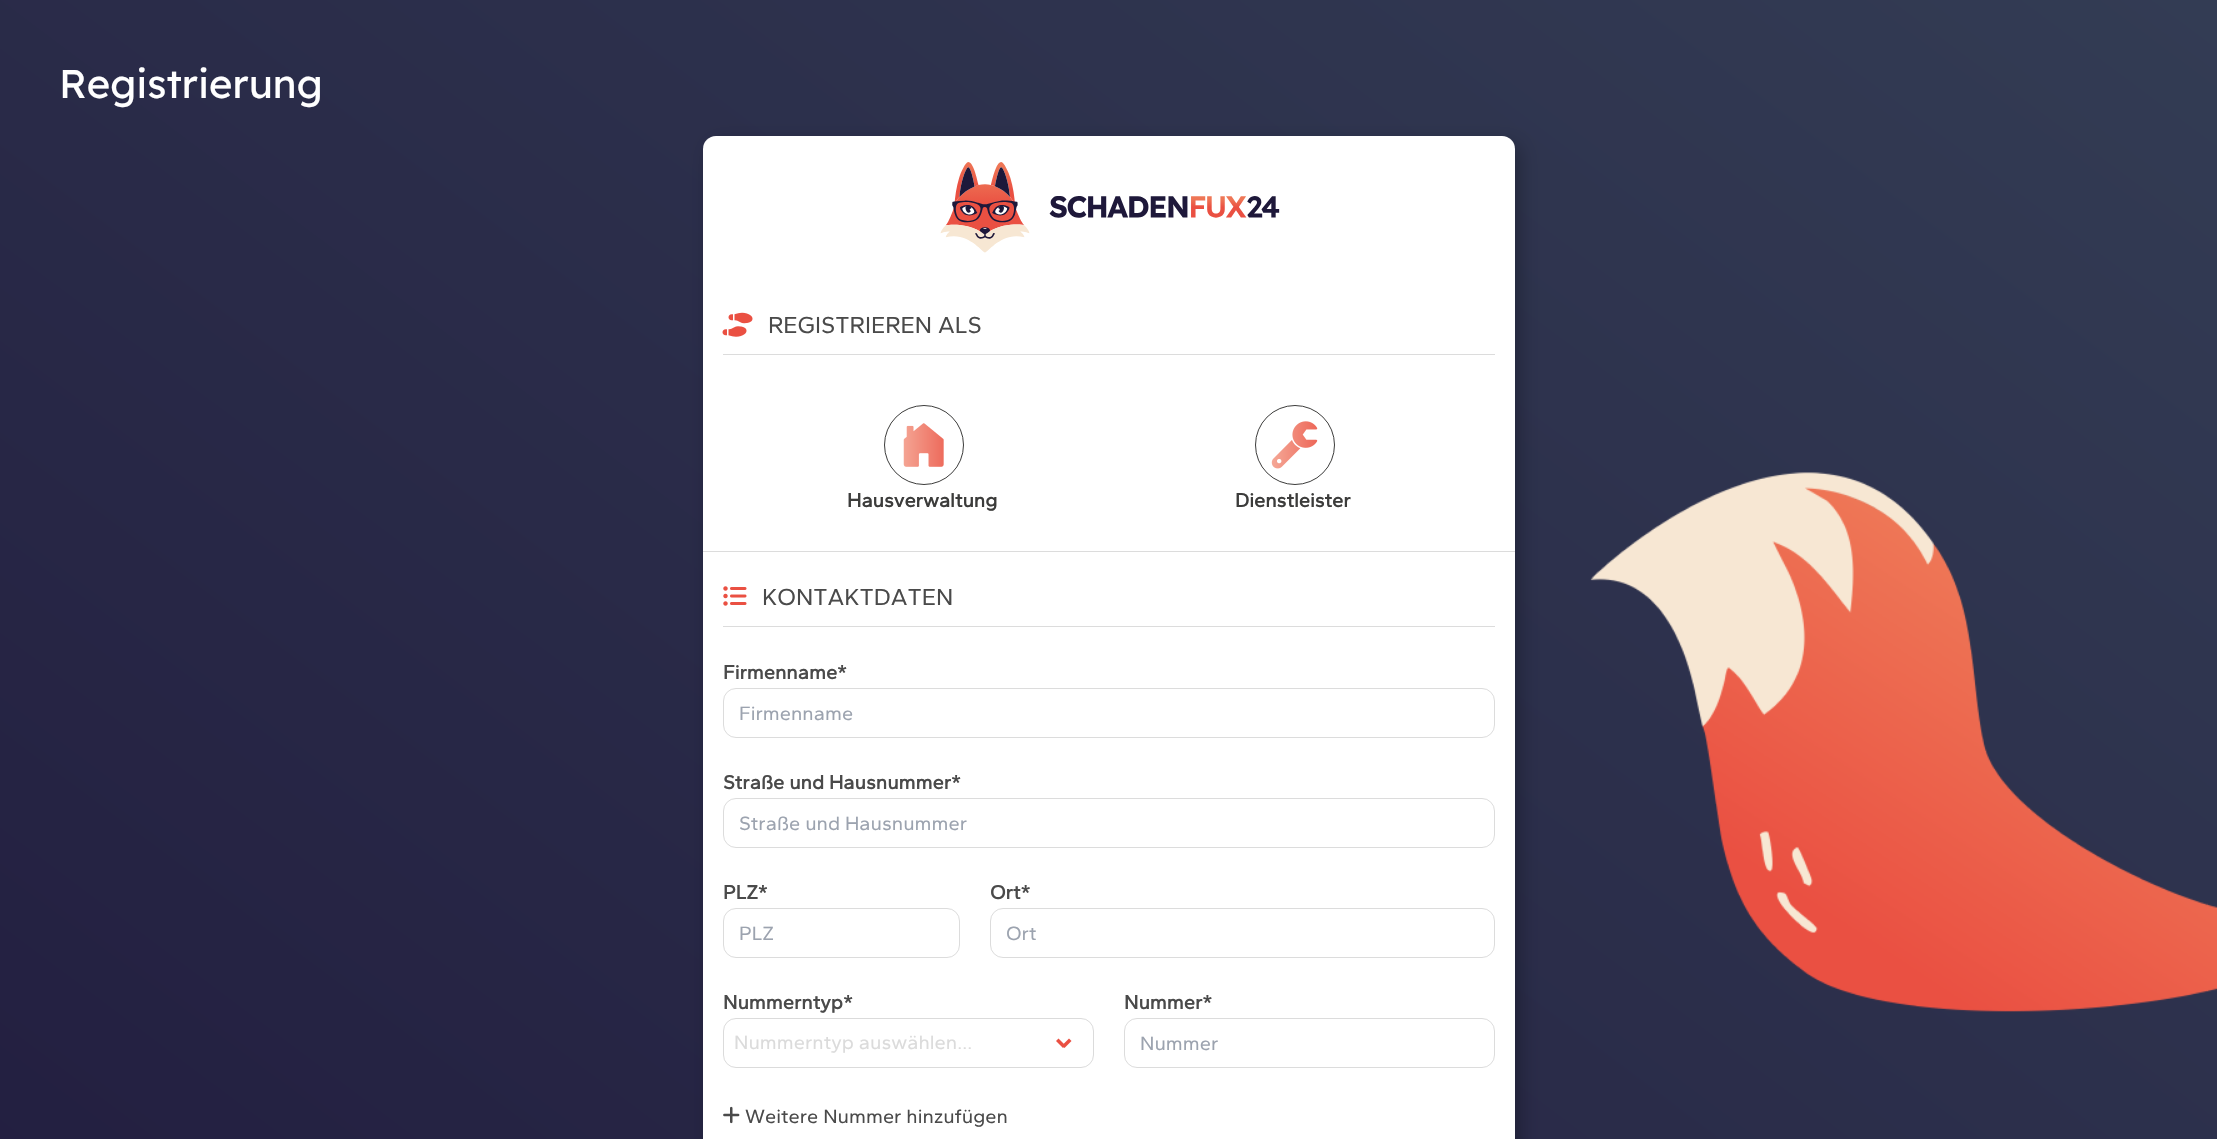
#include "include/core/SkBlurTypes.h"
#include "include/core/SkCanvas.h"
#include "include/core/SkData.h"
#include "include/core/SkFont.h"
#include "include/core/SkFontMgr.h"
#include "include/core/SkImage.h"
#include "include/core/SkMaskFilter.h"
#include "include/core/SkPaint.h"
#include "include/core/SkPathBuilder.h"
#include "include/core/SkTextBlob.h"
#include "include/effects/SkDashPathEffect.h"
#include "include/effects/SkGradientShader.h"
#include "include/utils/SkParsePath.h"

extern sk_sp<SkFontMgr> fontMgr;

static SkFont font(const char* family, int weight, float size, bool italic = false) {
    SkFontStyle style(weight, SkFontStyle::kNormal_Width,
        italic ? SkFontStyle::kItalic_Slant : SkFontStyle::kUpright_Slant);
    SkFont result(fontMgr->matchFamilyStyle(family, style), size);
    result.setSubpixel(true);
    return result;
}

static void drawLabel(SkCanvas* canvas, const char* s, float x, float y, const SkFont& font, SkColor color) {
    SkPaint ink(SkColor4f::FromColor(color));
    ink.setAntiAlias(true);
    canvas->drawString(s, x, y, font, ink);
}

static void fillRect(SkCanvas* canvas, float x, float y, float w, float h, SkColor color) {
    SkPaint ink(SkColor4f::FromColor(color));
    ink.setAntiAlias(true);
    canvas->drawRect(SkRect::MakeXYWH(x, y, w, h), ink);
}

static void fillRRect(SkCanvas* canvas, float x, float y, float w, float h, float radius, SkColor color) {
    SkPaint ink(SkColor4f::FromColor(color));
    ink.setAntiAlias(true);
    canvas->drawRoundRect(SkRect::MakeXYWH(x, y, w, h), radius, radius, ink);
}

static void drawPhoto(SkCanvas* canvas, const char* path, float x, float y, float w, float h) {
    auto image = SkImages::DeferredFromEncodedData(SkData::MakeFromFileName(path));
    canvas->drawImageRect(image, SkRect::MakeXYWH(x, y, w, h), SkSamplingOptions());
}

static SkPath parsePath(const char* data, bool evenOdd = false) {
    SkPath result = *SkParsePath::FromSVGString(data);
    if (evenOdd) result.setFillType(SkPathFillType::kEvenOdd);
    return result;
}

void draw(SkCanvas* canvas) {
    SkPaint paint;
    paint.setAntiAlias(true);
    canvas->clear(0xFFFFFFFF);
    {
        const SkColor colors[] = {0xFF201A3D, 0xFF333C54};
        const float stops[] = {0, 1};
        const SkPoint ends[] = {{315, 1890}, {1902, -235}};
        paint.setShader(SkGradientShader::MakeLinear(ends, colors, stops, 2, SkTileMode::kClamp));
        paint.setAlpha(255);
    }
    canvas->drawRect(SkRect::MakeXYWH(0, 0, 2217, 1139), paint);
    SkFont font1 = font("Lexend", 400, 40);
    drawLabel(canvas, "Registrierung", 59, 98, font1, 0xFFFFFFFF);
    paint.setShader(nullptr);
    paint.setColor(0x40000000);
    paint.setMaskFilter(SkMaskFilter::MakeBlur(kNormal_SkBlurStyle, 9.5f));
    canvas->drawRoundRect(SkRect::MakeXYWH(709, 143, 812, 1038), 13, 13, paint);
    paint.setMaskFilter(nullptr);
    fillRRect(canvas, 703, 136, 812, 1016, 13, 0xFFFFFFFF);
    drawPhoto(canvas, "assets/img1.png", 940, 162, 340, 91);
    fillRect(canvas, 723, 354, 772, 1, 0xFFDCDCDC);
    drawPhoto(canvas, "assets/img2.png", 722, 312, 31, 25);
    SkFont font2 = font("Gantari", 400, 24);
    drawLabel(canvas, "REGISTRIEREN ALS", 768, 333, font2, 0xFF4A4A4A);
    paint.setStroke(true);
    paint.setStrokeWidth(1);
    paint.setColor(0xFF3C3C3B);
    canvas->drawCircle(924, 445, 39.5f, paint);
    drawPhoto(canvas, "assets/img3.png", 903, 423, 41, 44);
    SkFont font3 = font("Gantari", 700, 20);
    drawLabel(canvas, "Hausverwaltung", 847, 507, font3, 0xFF3C3C3B);
    canvas->drawCircle(1295, 445, 39.5f, paint);
    drawPhoto(canvas, "assets/img4.png", 1271, 421, 47, 48);
    drawLabel(canvas, "Dienstleister", 1235, 507, font3, 0xFF3C3C3B);
    fillRect(canvas, 703, 551, 812, 1, 0xFFDCDCDC);
    fillRect(canvas, 723, 626, 772, 1, 0xFFDCDCDC);
    drawPhoto(canvas, "assets/img5.png", 723, 586, 24, 20);
    drawLabel(canvas, "KONTAKTDATEN", 762, 605, font2, 0xFF4A4A4A);
    drawLabel(canvas, "Firmenname*", 723, 679, font3, 0xFF4A4A4A);
    paint.setColor(0xFFDCDCDC);
    canvas->drawRoundRect(SkRect::MakeXYWH(723.5f, 688.5f, 771, 49), 12.5f, 12.5f, paint);
    SkFont font4 = font("Gantari", 400, 20);
    drawLabel(canvas, "Firmenname", 739, 720, font4, 0xFF9CA3AF);
    drawLabel(canvas, "Straße und Hausnummer*", 723, 789, font3, 0xFF4A4A4A);
    canvas->drawRoundRect(SkRect::MakeXYWH(723.5f, 798.5f, 771, 49), 12.5f, 12.5f, paint);
    drawLabel(canvas, "Straße und Hausnummer", 739, 830, font4, 0xFF9CA3AF);
    drawLabel(canvas, "PLZ*", 723, 899, font3, 0xFF4A4A4A);
    canvas->drawRoundRect(SkRect::MakeXYWH(723.5f, 908.5f, 236, 49), 12.5f, 12.5f, paint);
    drawLabel(canvas, "PLZ", 739, 940, font4, 0xFF9CA3AF);
    drawLabel(canvas, "Ort*", 990, 899, font3, 0xFF4A4A4A);
    canvas->drawRoundRect(SkRect::MakeXYWH(990.5f, 908.5f, 504, 49), 12.5f, 12.5f, paint);
    drawLabel(canvas, "Ort", 1006, 940, font4, 0xFF9CA3AF);
    drawLabel(canvas, "Nummerntyp*", 723, 1009, font3, 0xFF4A4A4A);
    paint.setColor(0xFFDBDBDB);
    canvas->drawRoundRect(SkRect::MakeXYWH(723.5f, 1018.5f, 370, 49), 12.5f, 12.5f, paint);
    drawLabel(canvas, "Nummerntyp auswählen...", 734, 1049, font4, 0xFFDBDBDB);
    paint.setStroke(false);
    paint.setColor(0xFFEA5042);
    canvas->drawPath(parsePath("M1062 1045.5L1069 1038.5L1071.5 1041L1064.5 1048Z"), paint);
    canvas->drawPath(parsePath("M1056 1041L1058.5 1038.5L1065.5 1045.5L1063 1048Z"), paint);
    drawLabel(canvas, "Nummer*", 1124, 1009, font3, 0xFF4A4A4A);
    paint.setStroke(true);
    paint.setColor(0xFFDCDCDC);
    canvas->drawRoundRect(SkRect::MakeXYWH(1124.5f, 1018.5f, 370, 49), 12.5f, 12.5f, paint);
    drawLabel(canvas, "Nummer", 1140, 1050, font4, 0xFF9CA3AF);
    drawPhoto(canvas, "assets/img6.png", 723, 1106, 17, 18);
    drawLabel(canvas, "Weitere Nummer hinzufügen", 745, 1123, font4, 0xFF4A4A4A);
    drawPhoto(canvas, "assets/img7.png", 1590, 472, 627, 540);
}
